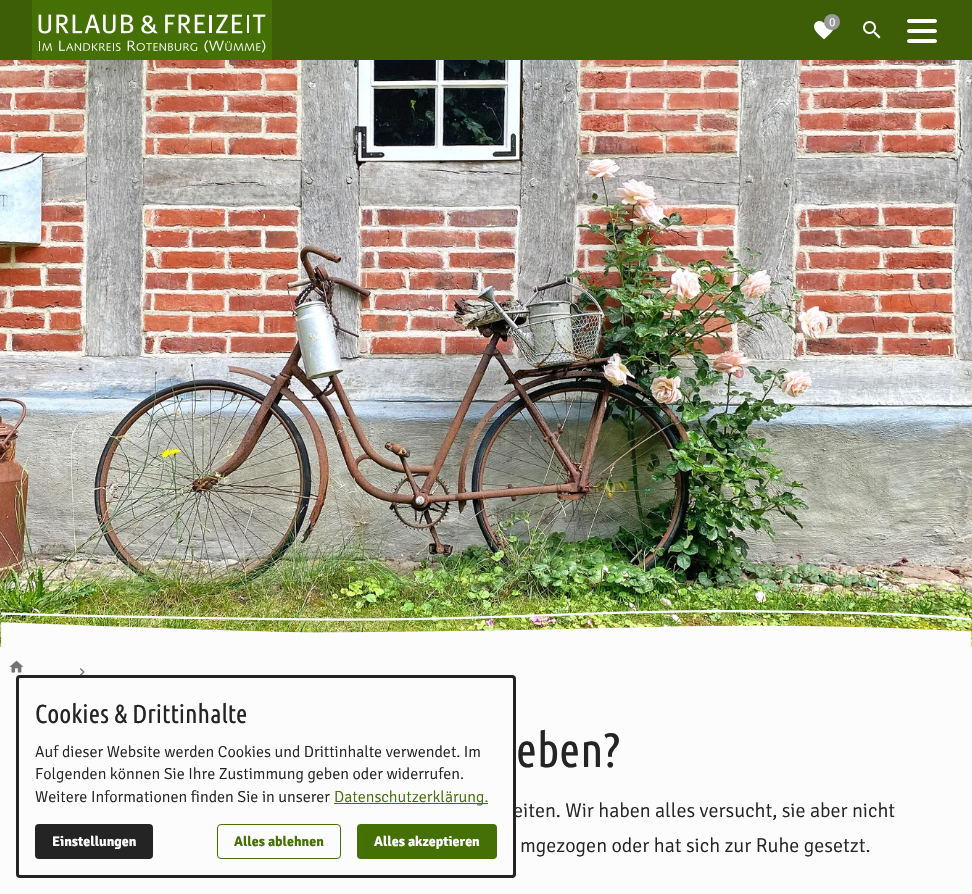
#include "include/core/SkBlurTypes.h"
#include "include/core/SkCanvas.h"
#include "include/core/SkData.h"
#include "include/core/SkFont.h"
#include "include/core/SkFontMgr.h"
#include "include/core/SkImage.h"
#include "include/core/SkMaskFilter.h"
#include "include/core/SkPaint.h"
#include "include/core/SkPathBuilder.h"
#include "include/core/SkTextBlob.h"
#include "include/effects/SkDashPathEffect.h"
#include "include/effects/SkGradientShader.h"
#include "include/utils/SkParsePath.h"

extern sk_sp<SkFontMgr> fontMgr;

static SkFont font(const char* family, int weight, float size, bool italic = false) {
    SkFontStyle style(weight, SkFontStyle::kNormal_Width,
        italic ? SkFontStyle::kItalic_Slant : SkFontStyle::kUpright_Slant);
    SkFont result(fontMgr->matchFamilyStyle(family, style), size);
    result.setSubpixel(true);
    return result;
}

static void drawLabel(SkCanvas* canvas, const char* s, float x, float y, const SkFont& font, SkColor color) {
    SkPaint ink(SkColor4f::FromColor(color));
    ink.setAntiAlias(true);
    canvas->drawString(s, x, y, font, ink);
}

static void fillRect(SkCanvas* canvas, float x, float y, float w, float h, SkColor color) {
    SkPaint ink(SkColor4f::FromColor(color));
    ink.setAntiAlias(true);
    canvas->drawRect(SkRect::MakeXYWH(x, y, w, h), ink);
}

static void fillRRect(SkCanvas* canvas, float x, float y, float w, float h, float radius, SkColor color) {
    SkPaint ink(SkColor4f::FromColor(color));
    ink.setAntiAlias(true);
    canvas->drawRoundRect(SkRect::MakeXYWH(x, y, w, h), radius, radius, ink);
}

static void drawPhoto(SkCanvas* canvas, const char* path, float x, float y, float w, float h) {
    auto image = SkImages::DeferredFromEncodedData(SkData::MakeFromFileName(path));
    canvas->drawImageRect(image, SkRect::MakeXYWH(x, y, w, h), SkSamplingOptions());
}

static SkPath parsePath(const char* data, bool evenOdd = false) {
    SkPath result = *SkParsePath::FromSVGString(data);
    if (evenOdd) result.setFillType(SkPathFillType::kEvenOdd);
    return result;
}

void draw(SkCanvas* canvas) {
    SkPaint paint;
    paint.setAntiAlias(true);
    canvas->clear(0xFFFCFCFC);
    fillRect(canvas, 0, 0, 972, 60, 0xFF3D5E06);
    fillRect(canvas, 32, 0, 240, 60, 0xFF457005);
    drawPhoto(canvas, "assets/img1.png", 38, 14, 228, 39);
    drawPhoto(canvas, "assets/img2.png", 814, 21, 20, 19);
    paint.setColor(0xFF999999);
    canvas->drawCircle(832, 22, 8, paint);
    SkFont font1 = font("Signika", 300, 12);
    drawLabel(canvas, "0", 829, 26, font1, 0xFFFFFFFF);
    drawPhoto(canvas, "assets/img3.png", 863, 21, 18, 18);
    paint.setColor(0xFFFCFCFC);
    canvas->drawPath(parsePath("M909 19H922V23H909C908 23 907 22 907 21C907 20 908 19 909 19Z"), paint);
    canvas->drawPath(parsePath("M922 19H935C936 19 937 20 937 21C937 22 936 23 935 23H922Z"), paint);
    canvas->drawPath(parsePath("M909 29H922V33H909C908 33 907 32 907 31C907 30 908 29 909 29Z"), paint);
    canvas->drawPath(parsePath("M922 29H935C936 29 937 30 937 31C937 32 936 33 935 33H922Z"), paint);
    canvas->drawPath(parsePath("M909 39H922V43H909C908 43 907 42 907 41C907 40 908 39 909 39Z"), paint);
    canvas->drawPath(parsePath("M922 39H935C936 39 937 40 937 41C937 42 936 43 935 43H922Z"), paint);
    SkFont font2 = font("Signika", 300, 20);
    drawLabel(canvas, "eiten. Wir haben alles versucht, sie aber nicht", 513, 817, font2, 0xFF242424);
    canvas->drawRoundRect(SkRect::MakeXYWH(17.5f, 676.5f, 497, 200), 2.5f, 2.5f, paint);
    paint.setStroke(true);
    paint.setStrokeWidth(3);
    paint.setColor(0xFF242424);
    canvas->drawRoundRect(SkRect::MakeXYWH(17.5f, 676.5f, 497, 200), 2.5f, 2.5f, paint);
    SkFont font3 = font("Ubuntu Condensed", 400, 26);
    drawLabel(canvas, "Cookies & Drittinhalte", 35, 723, font3, 0xFF242424);
    SkFont font4 = font("Signika", 300, 16);
    drawLabel(canvas, "Auf dieser Website werden Cookies und Drittinhalte verwendet. Im", 35, 757, font4, 0xFF242424);
    drawLabel(canvas, "Folgenden können Sie Ihre Zustimmung geben oder widerrufen.", 35, 779, font4, 0xFF242424);
    drawLabel(canvas, "Weitere Informationen finden Sie in unserer", 35, 802, font4, 0xFF242424);
    fillRect(canvas, 334, 803, 154, 1, 0xFF457005);
    drawLabel(canvas, "Datenschutzerklärung.", 334, 802, font4, 0xFF457005);
    fillRRect(canvas, 35, 824, 118, 35, 4, 0xFF242424);
    SkFont font5 = font("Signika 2", 300, 14);
    drawLabel(canvas, "Einstellungen", 52, 846, font5, 0xFFFFFFFF);
    paint.setStrokeWidth(1);
    paint.setColor(0xFF457005);
    canvas->drawRoundRect(SkRect::MakeXYWH(217.5f, 824.5f, 123, 34), 3.5f, 3.5f, paint);
    drawLabel(canvas, "Alles ablehnen", 234, 846, font5, 0xFF457005);
    fillRRect(canvas, 357, 824, 140, 35, 4, 0xFF457005);
    drawLabel(canvas, "Alles akzeptieren", 374, 846, font5, 0xFFFFFFFF);
    drawPhoto(canvas, "assets/img4.png", 0, 60, 972, 587);
    drawPhoto(canvas, "assets/img5.png", 1, 610, 970, 37);
    drawPhoto(canvas, "assets/img6.png", 9, 660, 15, 13);
    drawPhoto(canvas, "assets/img7.png", 79, 668, 6, 7);
    SkFont font6 = font("Ubuntu Condensed", 400, 48);
    drawLabel(canvas, "eben?", 516, 767, font6, 0xFF242424);
    drawLabel(canvas, "mgezogen oder hat sich zur Ruhe gesetzt.", 520, 852, font2, 0xFF242424);
}
